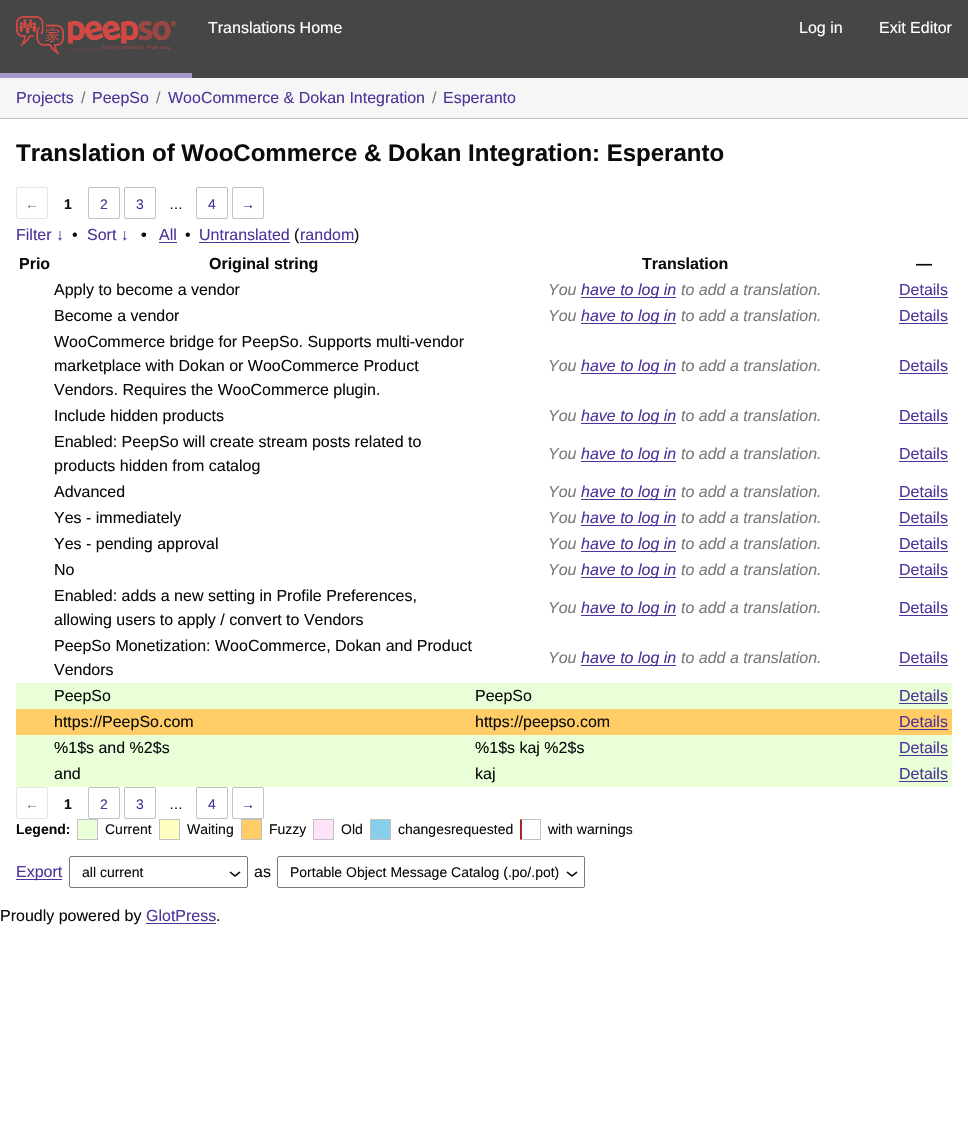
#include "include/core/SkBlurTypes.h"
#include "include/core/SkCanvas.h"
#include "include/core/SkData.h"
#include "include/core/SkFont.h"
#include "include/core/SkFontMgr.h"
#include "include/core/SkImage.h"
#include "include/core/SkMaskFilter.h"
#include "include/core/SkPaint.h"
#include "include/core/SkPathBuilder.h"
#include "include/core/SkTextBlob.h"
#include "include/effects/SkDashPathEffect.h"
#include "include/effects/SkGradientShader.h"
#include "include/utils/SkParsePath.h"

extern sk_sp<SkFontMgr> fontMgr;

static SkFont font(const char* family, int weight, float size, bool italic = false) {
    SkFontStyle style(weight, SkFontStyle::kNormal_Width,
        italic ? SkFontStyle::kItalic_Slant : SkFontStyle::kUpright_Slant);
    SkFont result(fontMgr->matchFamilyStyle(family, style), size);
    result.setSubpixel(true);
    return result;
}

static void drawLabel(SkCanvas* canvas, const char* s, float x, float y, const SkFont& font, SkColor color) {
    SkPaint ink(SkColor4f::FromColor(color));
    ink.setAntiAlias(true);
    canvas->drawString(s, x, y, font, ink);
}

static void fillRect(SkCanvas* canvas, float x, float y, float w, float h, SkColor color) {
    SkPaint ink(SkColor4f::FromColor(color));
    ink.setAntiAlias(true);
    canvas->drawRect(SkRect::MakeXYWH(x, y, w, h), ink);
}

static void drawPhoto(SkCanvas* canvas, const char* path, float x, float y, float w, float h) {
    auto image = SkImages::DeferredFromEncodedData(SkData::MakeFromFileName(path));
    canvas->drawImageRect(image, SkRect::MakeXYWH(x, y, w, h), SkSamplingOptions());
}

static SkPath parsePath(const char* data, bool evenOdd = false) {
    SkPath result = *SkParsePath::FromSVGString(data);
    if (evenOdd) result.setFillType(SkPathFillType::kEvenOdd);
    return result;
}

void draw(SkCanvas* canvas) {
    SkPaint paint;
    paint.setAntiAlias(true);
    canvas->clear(0xFFFFFFFF);
    fillRect(canvas, 0, 0, 968, 78, 0xFF464646);
    fillRect(canvas, 0, 73, 192, 5, 0xFFA597C9);
    drawPhoto(canvas, "assets/img1.png", 16, 16, 160, 39);
    SkFont font1 = font("Liberation Sans", 400, 16);
    drawLabel(canvas, "Translations Home", 208, 33, font1, 0xFFFFFFFF);
    drawLabel(canvas, "Log in", 799, 33, font1, 0xFFFFFFFF);
    drawLabel(canvas, "Exit Editor", 879, 33, font1, 0xFFFFFFFF);
    fillRect(canvas, 0, 78, 968, 40, 0xFFF6F6F6);
    fillRect(canvas, 0, 118, 968, 1, 0xFFC1C1C1);
    drawLabel(canvas, "Projects", 16, 103, font1, 0xFF4E3499);
    drawLabel(canvas, "/", 81, 103, font1, 0xFF7A7A7A);
    drawLabel(canvas, "PeepSo", 92, 103, font1, 0xFF4E3499);
    drawLabel(canvas, "/", 156, 103, font1, 0xFF7A7A7A);
    drawLabel(canvas, "WooCommerce & Dokan Integration", 168, 103, font1, 0xFF4E3499);
    drawLabel(canvas, "/", 432, 103, font1, 0xFF7A7A7A);
    drawLabel(canvas, "Esperanto", 443, 103, font1, 0xFF4E3499);
    SkFont font2 = font("Liberation Sans", 700, 24);
    drawLabel(canvas, "Translation of WooCommerce & Dokan Integration: Esperanto", 16, 161, font2, 0xFF0B0C0C);
    paint.setStroke(true);
    paint.setStrokeWidth(1);
    paint.setColor(0xFFE4E4E4);
    canvas->drawRoundRect(SkRect::MakeXYWH(16.5f, 187.5f, 31, 31), 1.5f, 1.5f, paint);
    SkFont font3 = font("Liberation Sans", 400, 14);
    drawLabel(canvas, "←", 25, 209, font3, 0xFF7A7A7A);
    SkFont font4 = font("Liberation Sans", 700, 14);
    drawLabel(canvas, "1", 64, 209, font4, 0xFF0B0C0C);
    paint.setColor(0xFFC1C1C1);
    canvas->drawRoundRect(SkRect::MakeXYWH(88.5f, 187.5f, 31, 31), 1.5f, 1.5f, paint);
    drawLabel(canvas, "2", 100, 209, font3, 0xFF4E3499);
    canvas->drawRoundRect(SkRect::MakeXYWH(124.5f, 187.5f, 31, 31), 1.5f, 1.5f, paint);
    drawLabel(canvas, "3", 136, 209, font3, 0xFF4E3499);
    drawLabel(canvas, "…", 169, 209, font3, 0xFF0B0C0C);
    canvas->drawRoundRect(SkRect::MakeXYWH(196.5f, 187.5f, 31, 31), 1.5f, 1.5f, paint);
    drawLabel(canvas, "4", 208, 209, font3, 0xFF4E3499);
    canvas->drawRoundRect(SkRect::MakeXYWH(232.5f, 187.5f, 31, 31), 1.5f, 1.5f, paint);
    drawLabel(canvas, "→", 241, 209, font3, 0xFF4E3499);
    drawLabel(canvas, "Filter ↓", 16, 240, font1, 0xFF4E3499);
    drawLabel(canvas, "•", 72, 240, font1, 0xFF0B0C0C);
    drawLabel(canvas, "Sort ↓", 87, 240, font1, 0xFF4E3499);
    SkFont font5 = font("Liberation Sans", 700, 16);
    drawLabel(canvas, "•", 141, 240, font5, 0xFF0B0C0C);
    drawLabel(canvas, "All", 159, 240, font1, 0xFF4E3499);
    fillRect(canvas, 159, 242, 18, 1, 0xFF4E3499);
    drawLabel(canvas, "•", 185, 240, font1, 0xFF0B0C0C);
    drawLabel(canvas, "Untranslated", 199, 240, font1, 0xFF4E3499);
    fillRect(canvas, 199, 242, 91, 1, 0xFF4E3499);
    drawLabel(canvas, "(", 294, 240, font1, 0xFF0B0C0C);
    drawLabel(canvas, "random", 300, 240, font1, 0xFF4E3499);
    fillRect(canvas, 300, 242, 54, 1, 0xFF4E3499);
    drawLabel(canvas, ")", 354, 240, font1, 0xFF0B0C0C);
    drawLabel(canvas, "Prio", 19, 269, font5, 0xFF0B0C0C);
    drawLabel(canvas, "Original string", 209, 269, font5, 0xFF0B0C0C);
    drawLabel(canvas, "Translation", 642, 269, font5, 0xFF0B0C0C);
    drawLabel(canvas, "—", 916, 269, font5, 0xFF0B0C0C);
    drawLabel(canvas, "Apply to become a vendor", 54, 295, font1, 0xFF0B0C0C);
    SkFont font6 = font("Liberation Sans", 400, 16, true);
    drawLabel(canvas, "You", 548, 295, font6, 0xFF7A7A7A);
    fillRect(canvas, 581, 297, 95, 1, 0xFF4E3499);
    drawLabel(canvas, "have to log in", 581, 295, font6, 0xFF4E3499);
    drawLabel(canvas, "to add a translation.", 681, 295, font6, 0xFF7A7A7A);
    drawLabel(canvas, "Details", 899, 295, font1, 0xFF4E3499);
    fillRect(canvas, 899, 297, 49, 1, 0xFF4E3499);
    drawLabel(canvas, "Become a vendor", 54, 321, font1, 0xFF0B0C0C);
    drawLabel(canvas, "You", 548, 321, font6, 0xFF7A7A7A);
    fillRect(canvas, 581, 323, 95, 1, 0xFF4E3499);
    drawLabel(canvas, "have to log in", 581, 321, font6, 0xFF4E3499);
    drawLabel(canvas, "to add a translation.", 681, 321, font6, 0xFF7A7A7A);
    drawLabel(canvas, "Details", 899, 321, font1, 0xFF4E3499);
    fillRect(canvas, 899, 323, 49, 1, 0xFF4E3499);
    drawLabel(canvas, "WooCommerce bridge for PeepSo. Supports multi-vendor", 54, 347, font1, 0xFF0B0C0C);
    drawLabel(canvas, "marketplace with Dokan or WooCommerce Product", 54, 371, font1, 0xFF0B0C0C);
    drawLabel(canvas, "Vendors. Requires the WooCommerce plugin.", 54, 395, font1, 0xFF0B0C0C);
    drawLabel(canvas, "You", 548, 371, font6, 0xFF7A7A7A);
    fillRect(canvas, 581, 373, 95, 1, 0xFF4E3499);
    drawLabel(canvas, "have to log in", 581, 371, font6, 0xFF4E3499);
    drawLabel(canvas, "to add a translation.", 681, 371, font6, 0xFF7A7A7A);
    drawLabel(canvas, "Details", 899, 371, font1, 0xFF4E3499);
    fillRect(canvas, 899, 373, 49, 1, 0xFF4E3499);
    drawLabel(canvas, "Include hidden products", 54, 421, font1, 0xFF0B0C0C);
    drawLabel(canvas, "You", 548, 421, font6, 0xFF7A7A7A);
    fillRect(canvas, 581, 423, 95, 1, 0xFF4E3499);
    drawLabel(canvas, "have to log in", 581, 421, font6, 0xFF4E3499);
    drawLabel(canvas, "to add a translation.", 681, 421, font6, 0xFF7A7A7A);
    drawLabel(canvas, "Details", 899, 421, font1, 0xFF4E3499);
    fillRect(canvas, 899, 423, 49, 1, 0xFF4E3499);
    drawLabel(canvas, "Enabled: PeepSo will create stream posts related to", 54, 447, font1, 0xFF0B0C0C);
    drawLabel(canvas, "products hidden from catalog", 54, 471, font1, 0xFF0B0C0C);
    drawLabel(canvas, "You", 548, 459, font6, 0xFF7A7A7A);
    fillRect(canvas, 581, 461, 95, 1, 0xFF4E3499);
    drawLabel(canvas, "have to log in", 581, 459, font6, 0xFF4E3499);
    drawLabel(canvas, "to add a translation.", 681, 459, font6, 0xFF7A7A7A);
    drawLabel(canvas, "Details", 899, 459, font1, 0xFF4E3499);
    fillRect(canvas, 899, 461, 49, 1, 0xFF4E3499);
    drawLabel(canvas, "Advanced", 54, 497, font1, 0xFF0B0C0C);
    drawLabel(canvas, "You", 548, 497, font6, 0xFF7A7A7A);
    fillRect(canvas, 581, 499, 95, 1, 0xFF4E3499);
    drawLabel(canvas, "have to log in", 581, 497, font6, 0xFF4E3499);
    drawLabel(canvas, "to add a translation.", 681, 497, font6, 0xFF7A7A7A);
    drawLabel(canvas, "Details", 899, 497, font1, 0xFF4E3499);
    fillRect(canvas, 899, 499, 49, 1, 0xFF4E3499);
    drawLabel(canvas, "Yes - immediately", 54, 523, font1, 0xFF0B0C0C);
    drawLabel(canvas, "You", 548, 523, font6, 0xFF7A7A7A);
    fillRect(canvas, 581, 525, 95, 1, 0xFF4E3499);
    drawLabel(canvas, "have to log in", 581, 523, font6, 0xFF4E3499);
    drawLabel(canvas, "to add a translation.", 681, 523, font6, 0xFF7A7A7A);
    drawLabel(canvas, "Details", 899, 523, font1, 0xFF4E3499);
    fillRect(canvas, 899, 525, 49, 1, 0xFF4E3499);
    drawLabel(canvas, "Yes - pending approval", 54, 549, font1, 0xFF0B0C0C);
    drawLabel(canvas, "You", 548, 549, font6, 0xFF7A7A7A);
    fillRect(canvas, 581, 551, 95, 1, 0xFF4E3499);
    drawLabel(canvas, "have to log in", 581, 549, font6, 0xFF4E3499);
    drawLabel(canvas, "to add a translation.", 681, 549, font6, 0xFF7A7A7A);
    drawLabel(canvas, "Details", 899, 549, font1, 0xFF4E3499);
    fillRect(canvas, 899, 551, 49, 1, 0xFF4E3499);
    drawLabel(canvas, "No", 54, 575, font1, 0xFF0B0C0C);
    drawLabel(canvas, "You", 548, 575, font6, 0xFF7A7A7A);
    fillRect(canvas, 581, 577, 95, 1, 0xFF4E3499);
    drawLabel(canvas, "have to log in", 581, 575, font6, 0xFF4E3499);
    drawLabel(canvas, "to add a translation.", 681, 575, font6, 0xFF7A7A7A);
    drawLabel(canvas, "Details", 899, 575, font1, 0xFF4E3499);
    fillRect(canvas, 899, 577, 49, 1, 0xFF4E3499);
    drawLabel(canvas, "Enabled: adds a new setting in Profile Preferences,", 54, 601, font1, 0xFF0B0C0C);
    drawLabel(canvas, "allowing users to apply / convert to Vendors", 54, 625, font1, 0xFF0B0C0C);
    drawLabel(canvas, "You", 548, 613, font6, 0xFF7A7A7A);
    fillRect(canvas, 581, 615, 95, 1, 0xFF4E3499);
    drawLabel(canvas, "have to log in", 581, 613, font6, 0xFF4E3499);
    drawLabel(canvas, "to add a translation.", 681, 613, font6, 0xFF7A7A7A);
    drawLabel(canvas, "Details", 899, 613, font1, 0xFF4E3499);
    fillRect(canvas, 899, 615, 49, 1, 0xFF4E3499);
    drawLabel(canvas, "PeepSo Monetization: WooCommerce, Dokan and Product", 54, 651, font1, 0xFF0B0C0C);
    drawLabel(canvas, "Vendors", 54, 675, font1, 0xFF0B0C0C);
    drawLabel(canvas, "You", 548, 663, font6, 0xFF7A7A7A);
    fillRect(canvas, 581, 665, 95, 1, 0xFF4E3499);
    drawLabel(canvas, "have to log in", 581, 663, font6, 0xFF4E3499);
    drawLabel(canvas, "to add a translation.", 681, 663, font6, 0xFF7A7A7A);
    drawLabel(canvas, "Details", 899, 663, font1, 0xFF4E3499);
    fillRect(canvas, 899, 665, 49, 1, 0xFF4E3499);
    fillRect(canvas, 16, 683, 936, 26, 0xFFE9FFD8);
    drawLabel(canvas, "PeepSo", 54, 701, font1, 0xFF0B0C0C);
    drawLabel(canvas, "PeepSo", 475, 701, font1, 0xFF0B0C0C);
    drawLabel(canvas, "Details", 899, 701, font1, 0xFF4E3499);
    fillRect(canvas, 899, 703, 49, 1, 0xFF4E3499);
    fillRect(canvas, 16, 709, 936, 26, 0xFFFFCC66);
    drawLabel(canvas, "https://PeepSo.com", 54, 727, font1, 0xFF0B0C0C);
    drawLabel(canvas, "https://peepso.com", 475, 727, font1, 0xFF0B0C0C);
    drawLabel(canvas, "Details", 899, 727, font1, 0xFF4E3499);
    fillRect(canvas, 899, 729, 49, 1, 0xFF4E3499);
    fillRect(canvas, 16, 735, 936, 52, 0xFFE9FFD8);
    drawLabel(canvas, "%1$s and %2$s", 54, 753, font1, 0xFF0B0C0C);
    drawLabel(canvas, "%1$s kaj %2$s", 475, 753, font1, 0xFF0B0C0C);
    drawLabel(canvas, "Details", 899, 753, font1, 0xFF4E3499);
    fillRect(canvas, 899, 755, 49, 1, 0xFF4E3499);
    drawLabel(canvas, "and", 54, 779, font1, 0xFF0B0C0C);
    drawLabel(canvas, "kaj", 475, 779, font1, 0xFF0B0C0C);
    drawLabel(canvas, "Details", 899, 779, font1, 0xFF4E3499);
    fillRect(canvas, 899, 781, 49, 1, 0xFF4E3499);
    paint.setColor(0xFFE4E4E4);
    canvas->drawRoundRect(SkRect::MakeXYWH(16.5f, 787.5f, 31, 31), 1.5f, 1.5f, paint);
    drawLabel(canvas, "←", 25, 809, font3, 0xFF7A7A7A);
    drawLabel(canvas, "1", 64, 809, font4, 0xFF0B0C0C);
    paint.setColor(0xFFC1C1C1);
    canvas->drawRoundRect(SkRect::MakeXYWH(88.5f, 787.5f, 31, 31), 1.5f, 1.5f, paint);
    drawLabel(canvas, "2", 100, 809, font3, 0xFF4E3499);
    canvas->drawRoundRect(SkRect::MakeXYWH(124.5f, 787.5f, 31, 31), 1.5f, 1.5f, paint);
    drawLabel(canvas, "3", 136, 809, font3, 0xFF4E3499);
    drawLabel(canvas, "…", 169, 809, font3, 0xFF0B0C0C);
    canvas->drawRoundRect(SkRect::MakeXYWH(196.5f, 787.5f, 31, 31), 1.5f, 1.5f, paint);
    drawLabel(canvas, "4", 208, 809, font3, 0xFF4E3499);
    canvas->drawRoundRect(SkRect::MakeXYWH(232.5f, 787.5f, 31, 31), 1.5f, 1.5f, paint);
    drawLabel(canvas, "→", 241, 809, font3, 0xFF4E3499);
    drawLabel(canvas, "Legend:", 16, 834, font4, 0xFF0B0C0C);
    paint.setStroke(false);
    paint.setColor(0xFFE9FFD8);
    canvas->drawRect(SkRect::MakeXYWH(77.5f, 819.5f, 20, 20), paint);
    paint.setStroke(true);
    paint.setColor(0xFFC1C1C1);
    canvas->drawRect(SkRect::MakeXYWH(77.5f, 819.5f, 20, 20), paint);
    drawLabel(canvas, "Current", 105, 834, font3, 0xFF0B0C0C);
    paint.setStroke(false);
    paint.setColor(0xFFFFFFC2);
    canvas->drawRect(SkRect::MakeXYWH(159.5f, 819.5f, 20, 20), paint);
    paint.setStroke(true);
    paint.setColor(0xFFC1C1C1);
    canvas->drawRect(SkRect::MakeXYWH(159.5f, 819.5f, 20, 20), paint);
    drawLabel(canvas, "Waiting", 187, 834, font3, 0xFF0B0C0C);
    paint.setStroke(false);
    paint.setColor(0xFFFFCC66);
    canvas->drawRect(SkRect::MakeXYWH(241.5f, 819.5f, 20, 20), paint);
    paint.setStroke(true);
    paint.setColor(0xFFC1C1C1);
    canvas->drawRect(SkRect::MakeXYWH(241.5f, 819.5f, 20, 20), paint);
    drawLabel(canvas, "Fuzzy", 269, 834, font3, 0xFF0B0C0C);
    paint.setStroke(false);
    paint.setColor(0xFFFEE4F8);
    canvas->drawRect(SkRect::MakeXYWH(313.5f, 819.5f, 20, 20), paint);
    paint.setStroke(true);
    paint.setColor(0xFFC1C1C1);
    canvas->drawRect(SkRect::MakeXYWH(313.5f, 819.5f, 20, 20), paint);
    drawLabel(canvas, "Old", 341, 834, font3, 0xFF0B0C0C);
    paint.setStroke(false);
    paint.setColor(0xFF87CEEB);
    canvas->drawRect(SkRect::MakeXYWH(370.5f, 819.5f, 20, 20), paint);
    paint.setStroke(true);
    paint.setColor(0xFFC1C1C1);
    canvas->drawRect(SkRect::MakeXYWH(370.5f, 819.5f, 20, 20), paint);
    drawLabel(canvas, "changesrequested", 398, 834, font3, 0xFF0B0C0C);
    paint.setStroke(false);
    canvas->drawPath(parsePath("M520 819H541L540 820H522Z"), paint);
    fillRect(canvas, 540, 819, 1, 21, 0xFFC1C1C1);
    canvas->drawPath(parsePath("M541 840H520L522 839H540Z"), paint);
    paint.setColor(0xFFA62626);
    canvas->drawPath(parsePath("M520 840V819L522 820V839Z"), paint);
    drawLabel(canvas, "with warnings", 548, 834, font3, 0xFF0B0C0C);
    fillRect(canvas, 16, 879, 46, 1, 0xFF4E3499);
    drawLabel(canvas, "Export", 16, 877, font1, 0xFF4E3499);
    drawPhoto(canvas, "assets/img2.png", 229, 871, 12, 6);
    paint.setStroke(true);
    paint.setColor(0xFF7A7A7A);
    canvas->drawRoundRect(SkRect::MakeXYWH(69.5f, 856.5f, 178, 31), 1.5f, 1.5f, paint);
    drawLabel(canvas, "all current", 82, 877, font3, 0xFF0B0C0C);
    drawLabel(canvas, "as", 254, 877, font1, 0xFF0B0C0C);
    drawPhoto(canvas, "assets/img2.png", 566, 871, 12, 6);
    canvas->drawRoundRect(SkRect::MakeXYWH(277.5f, 856.5f, 307, 31), 1.5f, 1.5f, paint);
    drawLabel(canvas, "Portable Object Message Catalog (.po/.pot)", 290, 877, font3, 0xFF0B0C0C);
    drawLabel(canvas, "Proudly powered by", 0, 921, font1, 0xFF0B0C0C);
    drawLabel(canvas, "GlotPress", 146, 921, font1, 0xFF4E3499);
    fillRect(canvas, 146, 923, 70, 1, 0xFF4E3499);
    drawLabel(canvas, ".", 216, 921, font1, 0xFF0B0C0C);
}
